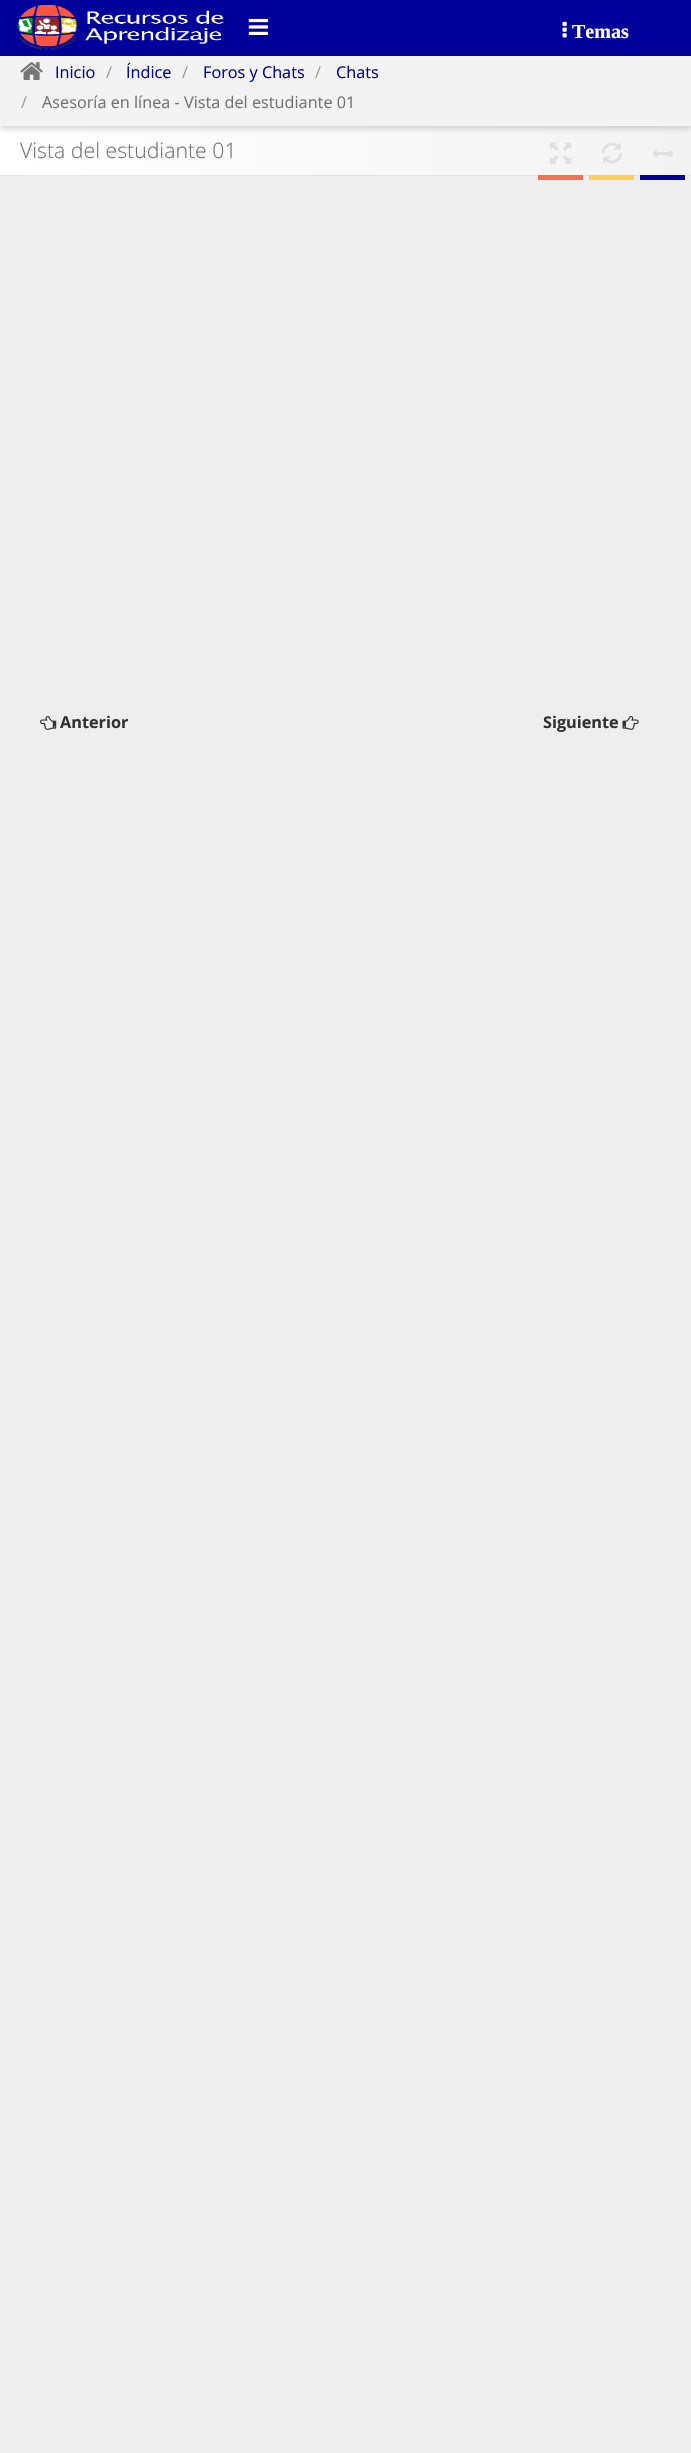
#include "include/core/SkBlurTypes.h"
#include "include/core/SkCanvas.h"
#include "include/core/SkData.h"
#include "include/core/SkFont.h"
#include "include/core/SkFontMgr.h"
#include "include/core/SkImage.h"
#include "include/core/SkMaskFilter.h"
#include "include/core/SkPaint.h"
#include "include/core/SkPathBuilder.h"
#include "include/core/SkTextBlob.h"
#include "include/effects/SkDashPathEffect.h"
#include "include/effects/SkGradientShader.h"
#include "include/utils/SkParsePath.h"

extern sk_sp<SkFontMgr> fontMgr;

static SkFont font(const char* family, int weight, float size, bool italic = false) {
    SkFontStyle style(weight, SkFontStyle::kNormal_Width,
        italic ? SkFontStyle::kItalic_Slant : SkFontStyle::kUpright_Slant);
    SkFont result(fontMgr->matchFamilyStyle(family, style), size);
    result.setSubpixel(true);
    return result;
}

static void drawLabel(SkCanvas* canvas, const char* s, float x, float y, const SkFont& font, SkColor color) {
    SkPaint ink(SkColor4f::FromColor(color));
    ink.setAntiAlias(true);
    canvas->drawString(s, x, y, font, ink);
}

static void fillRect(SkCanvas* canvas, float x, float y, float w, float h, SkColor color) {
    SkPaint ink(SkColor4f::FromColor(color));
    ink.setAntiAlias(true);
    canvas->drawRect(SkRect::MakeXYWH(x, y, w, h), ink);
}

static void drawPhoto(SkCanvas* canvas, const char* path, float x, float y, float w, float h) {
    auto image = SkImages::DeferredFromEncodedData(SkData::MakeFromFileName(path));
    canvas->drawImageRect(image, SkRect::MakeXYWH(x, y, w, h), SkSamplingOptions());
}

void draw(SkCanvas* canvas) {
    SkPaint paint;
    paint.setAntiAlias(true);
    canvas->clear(0xFFEEEEEE);
    {
        const SkColor colors[] = {0xFFFFFFFF, 0xFFF3F3F3};
        const float stops[] = {0, 1};
        const SkPoint ends[] = {{0, 151}, {691, 151}};
        paint.setShader(SkGradientShader::MakeLinear(ends, colors, stops, 2, SkTileMode::kClamp));
        paint.setAlpha(255);
    }
    canvas->drawRect(SkRect::MakeXYWH(0, 126, 691, 49), paint);
    paint.setShader(nullptr);
    paint.setColor(0x26000000);
    paint.setMaskFilter(SkMaskFilter::MakeBlur(kNormal_SkBlurStyle, 2.5f));
    canvas->drawRect(SkRect::MakeXYWH(0, 59, 691, 70), paint);
    paint.setMaskFilter(nullptr);
    fillRect(canvas, 0, 0, 691, 56, 0xFF00009B);
    drawPhoto(canvas, "assets/img1.png", 18, 5, 206, 45);
    drawPhoto(canvas, "assets/img2.png", 248, 18, 21, 17);
    drawPhoto(canvas, "assets/img3.png", 562, 21, 5, 17);
    SkFont font1 = font("Liberation Serif", 700, 20);
    drawLabel(canvas, "Temas", 572, 38, font1, 0xFFFFFFFF);
    fillRect(canvas, 0, 56, 691, 70, 0xFFF3F3F3);
    drawPhoto(canvas, "assets/img4.png", 20, 62, 23, 18);
    SkFont font2 = font("Open Sans", 400, 16.25f);
    drawLabel(canvas, "Inicio", 55, 78, font2, 0xFF00009B);
    drawLabel(canvas, "/", 106, 78, font2, 0xFF999999);
    drawLabel(canvas, "Índice", 126, 78, font2, 0xFF00009B);
    drawLabel(canvas, "/", 182, 78, font2, 0xFF999999);
    drawLabel(canvas, "Foros y Chats", 203, 78, font2, 0xFF00009B);
    drawLabel(canvas, "/", 315, 78, font2, 0xFF999999);
    drawLabel(canvas, "Chats", 336, 78, font2, 0xFF00009B);
    drawLabel(canvas, "/", 21, 108, font2, 0xFF999999);
    drawLabel(canvas, "Asesoría en línea - Vista del estudiante 01", 42, 108, font2, 0xFF737373);
    fillRect(canvas, 0, 175, 691, 1, 0xFFE5E5E5);
    SkFont font3 = font("Open Sans", 300, 21.25f);
    drawLabel(canvas, "Vista del estudiante 01", 20, 158, font3, 0xFF737373);
    drawPhoto(canvas, "assets/img5.png", 550, 142, 22, 22);
    fillRect(canvas, 538, 175, 45, 5, 0xFFFB6E52);
    drawPhoto(canvas, "assets/img6.png", 601, 142, 21, 22);
    fillRect(canvas, 589, 175, 45, 5, 0xFFFFCE55);
    drawPhoto(canvas, "assets/img7.png", 652, 150, 22, 8);
    fillRect(canvas, 640, 175, 45, 5, 0xFF00009B);
    drawPhoto(canvas, "assets/img8.png", 40, 716, 17, 14);
    SkFont font4 = font("Open Sans", 700, 16.25f);
    drawLabel(canvas, "Anterior", 60, 728, font4, 0xFF333333);
    drawLabel(canvas, "Siguiente", 543, 728, font4, 0xFF333333);
    drawPhoto(canvas, "assets/img9.png", 622, 716, 17, 14);
}
